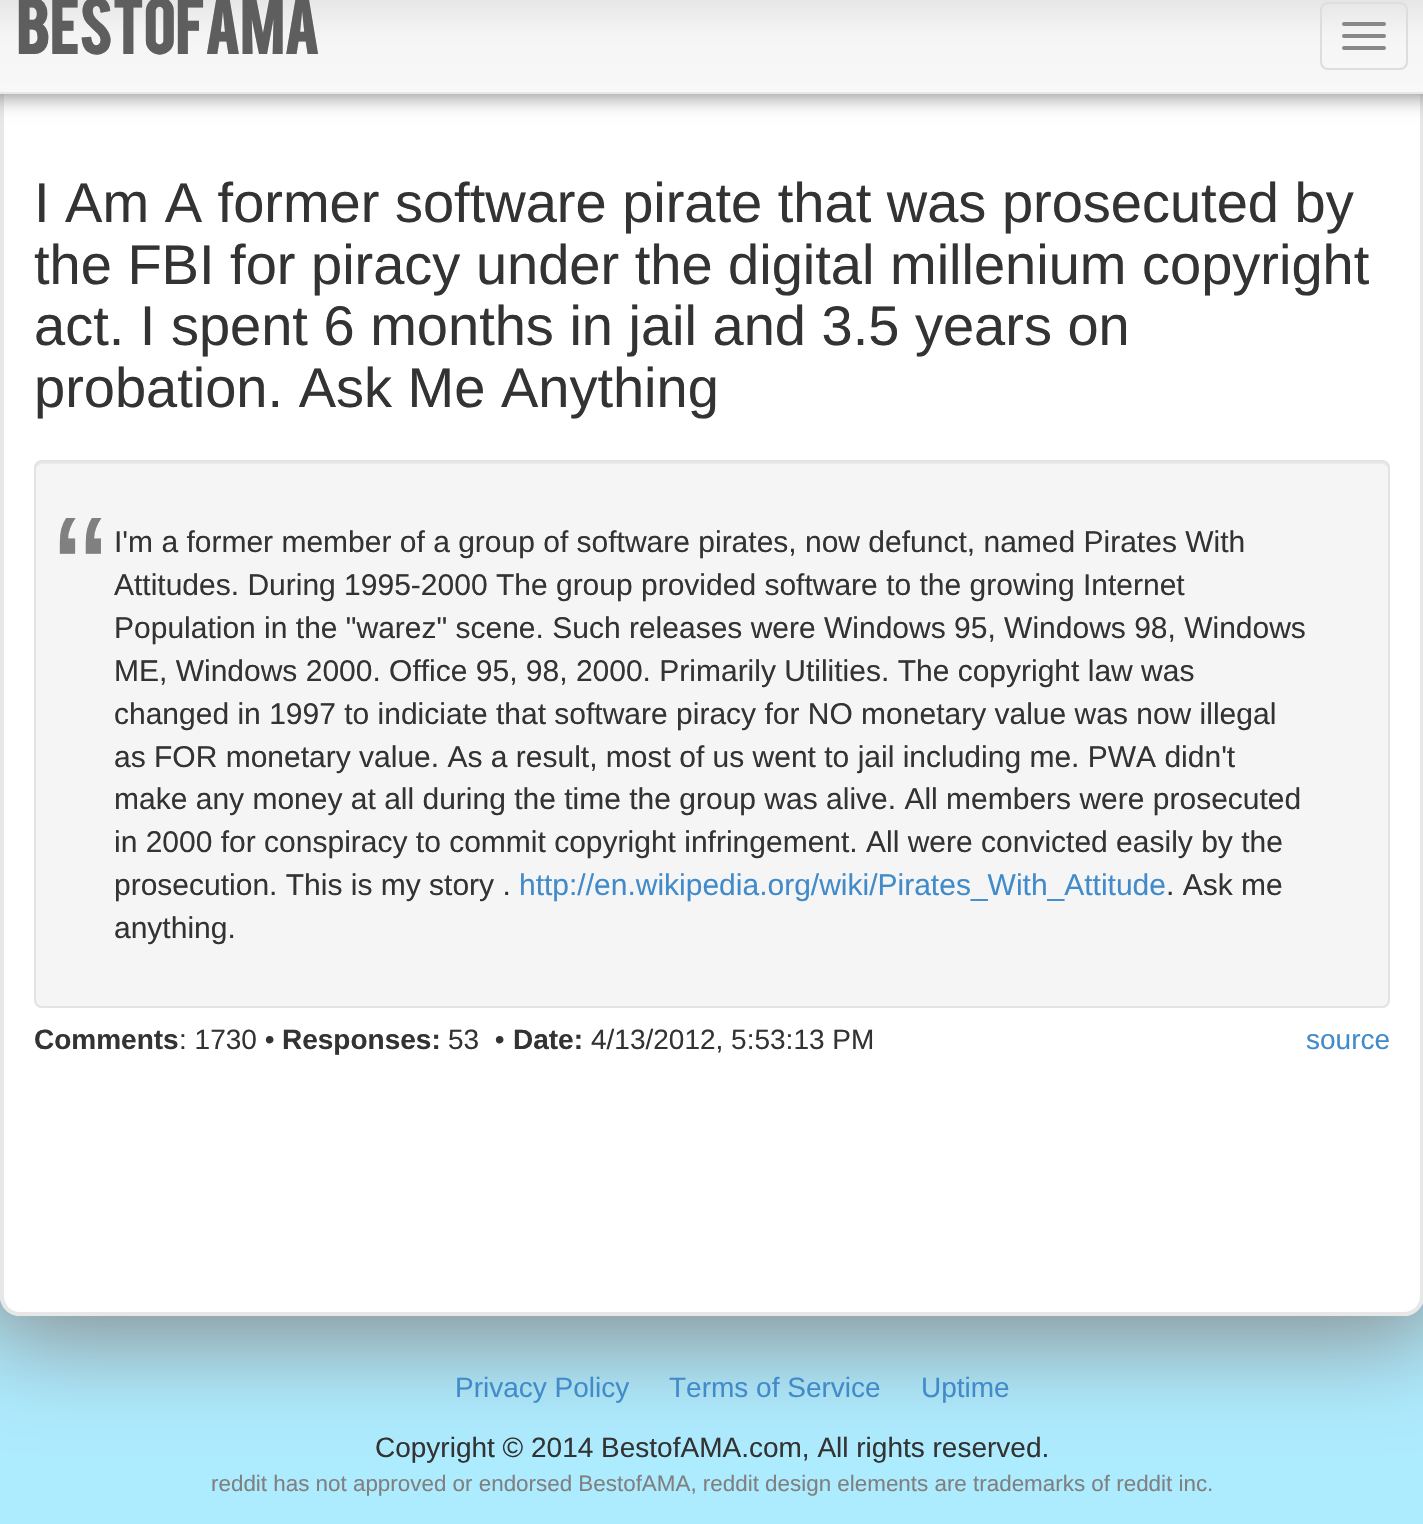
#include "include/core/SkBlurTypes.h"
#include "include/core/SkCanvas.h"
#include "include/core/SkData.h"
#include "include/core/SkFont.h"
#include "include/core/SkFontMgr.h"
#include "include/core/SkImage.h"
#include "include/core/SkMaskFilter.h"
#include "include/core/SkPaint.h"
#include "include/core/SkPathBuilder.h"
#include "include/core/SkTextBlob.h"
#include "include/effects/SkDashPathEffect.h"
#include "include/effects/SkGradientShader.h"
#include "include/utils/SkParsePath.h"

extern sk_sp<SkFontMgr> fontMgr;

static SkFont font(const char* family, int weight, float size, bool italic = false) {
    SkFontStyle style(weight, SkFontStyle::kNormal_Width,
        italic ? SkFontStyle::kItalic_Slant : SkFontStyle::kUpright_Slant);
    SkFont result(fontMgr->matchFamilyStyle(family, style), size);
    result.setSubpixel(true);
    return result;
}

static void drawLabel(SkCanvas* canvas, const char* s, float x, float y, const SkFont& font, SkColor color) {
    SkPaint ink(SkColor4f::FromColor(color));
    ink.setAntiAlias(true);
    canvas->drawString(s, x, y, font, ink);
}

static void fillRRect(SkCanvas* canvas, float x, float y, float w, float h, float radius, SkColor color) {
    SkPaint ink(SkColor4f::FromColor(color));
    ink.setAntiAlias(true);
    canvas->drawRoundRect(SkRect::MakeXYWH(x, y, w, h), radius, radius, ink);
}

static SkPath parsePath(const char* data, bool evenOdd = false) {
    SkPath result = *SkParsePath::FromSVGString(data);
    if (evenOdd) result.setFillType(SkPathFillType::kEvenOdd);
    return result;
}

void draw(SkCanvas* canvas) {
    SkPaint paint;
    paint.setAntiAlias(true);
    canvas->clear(0xFFADEBFF);
    paint.setColor(0xFF888888);
    paint.setMaskFilter(SkMaskFilter::MakeBlur(kNormal_SkBlurStyle, 50));
    canvas->drawRoundRect(SkRect::MakeXYWH(-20, -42, 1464, 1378), 40, 40, paint);
    paint.setMaskFilter(nullptr);
    paint.setColor(0xFFFFFFFF);
    canvas->drawPath(parsePath("M0-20H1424V1296C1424 1307 1415 1316 1404 1316H20C9 1316 0 1307 0 1296Z"), paint);
    paint.setColor(0xFFE7E7E7);
    canvas->drawPath(parsePath("M0-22H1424V1296C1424 1307 1415 1316 1404 1316H20C9 1316 0 1307 0 1296ZM4-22H1420V1296C1420 1305 1413 1312 1404 1312H20C11 1312 4 1305 4 1296Z", true), paint);
    paint.setColor(0xFF888888);
    paint.setMaskFilter(SkMaskFilter::MakeBlur(kNormal_SkBlurStyle, 10));
    canvas->drawRect(SkRect::MakeXYWH(-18, -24, 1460, 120), paint);
    paint.setMaskFilter(nullptr);
    {
        const SkColor colors[] = {0xFFDEDEDE, 0xFFF5F5F5, 0xFFF8F8F8};
        const float stops[] = {0, 0.5f, 1};
        const SkPoint ends[] = {{-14, -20}, {-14, 92}};
        paint.setShader(SkGradientShader::MakeLinear(ends, colors, stops, 3, SkTileMode::kClamp));
        paint.setAlpha(255);
    }
    canvas->drawRect(SkRect::MakeXYWH(0, 0, 1423, 92), paint);
    paint.setStroke(true);
    paint.setStrokeWidth(2);
    paint.setShader(nullptr);
    paint.setColor(0xFFE7E7E7);
    canvas->drawRect(SkRect::MakeXYWH(-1, -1, 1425, 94), paint);
    SkFont font1 = font("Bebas", 700, 61.5f);
    drawLabel(canvas, "BestofAMA", 16, 54, font1, 0xFF5E5E5E);
    paint.setColor(0xFFDDDDDD);
    canvas->drawRoundRect(SkRect::MakeXYWH(1321, 3, 86, 66), 7, 7, paint);
    fillRRect(canvas, 1342, 22, 44, 4, 2, 0xFF888888);
    fillRRect(canvas, 1342, 34, 44, 4, 2, 0xFF888888);
    fillRRect(canvas, 1342, 46, 44, 4, 2, 0xFF888888);
    SkFont font2 = font("Liberation Sans", 400, 56);
    drawLabel(canvas, "I Am A former software pirate that was prosecuted by", 34, 222, font2, 0xFF333333);
    drawLabel(canvas, "the FBI for piracy under the digital millenium copyright", 34, 284, font2, 0xFF333333);
    drawLabel(canvas, "act. I spent 6 months in jail and 3.5 years on", 34, 345, font2, 0xFF333333);
    drawLabel(canvas, "probation. Ask Me Anything", 34, 407, font2, 0xFF333333);
    fillRRect(canvas, 34, 460, 1356, 548, 8, 0xFFF5F5F5);
    paint.setStroke(false);
    paint.setColor(0xFFE9E9E9);
    canvas->drawPath(parsePath("M42 464H1382C1385 464 1388 467 1388 470V468C1388 465 1385 462 1382 462H42C39 462 36 465 36 468V470C36 467 39 464 42 464Z"), paint);
    paint.setStroke(true);
    paint.setColor(0xFFE3E3E3);
    canvas->drawRoundRect(SkRect::MakeXYWH(35, 461, 1354, 546), 7, 7, paint);
    SkFont font3 = font("Liberation Sans", 400, 160);
    drawLabel(canvas, "“", 54, 628, font3, 0xFF808080);
    SkFont font4 = font("Liberation Sans", 400, 30);
    drawLabel(canvas, "I'm a former member of a group of software pirates, now defunct, named Pirates With", 114, 552, font4, 0xFF333333);
    drawLabel(canvas, "Attitudes. During 1995-2000 The group provided software to the growing Internet", 114, 595, font4, 0xFF333333);
    drawLabel(canvas, "Population in the \"warez\" scene. Such releases were Windows 95, Windows 98, Windows", 114, 638, font4, 0xFF333333);
    drawLabel(canvas, "ME, Windows 2000. Office 95, 98, 2000. Primarily Utilities. The copyright law was", 114, 681, font4, 0xFF333333);
    drawLabel(canvas, "changed in 1997 to indiciate that software piracy for NO monetary value was now illegal", 114, 724, font4, 0xFF333333);
    drawLabel(canvas, "as FOR monetary value. As a result, most of us went to jail including me. PWA didn't", 114, 767, font4, 0xFF333333);
    drawLabel(canvas, "make any money at all during the time the group was alive. All members were prosecuted", 114, 809, font4, 0xFF333333);
    drawLabel(canvas, "in 2000 for conspiracy to commit copyright infringement. All were convicted easily by the", 114, 852, font4, 0xFF333333);
    drawLabel(canvas, "prosecution. This is my story .", 114, 895, font4, 0xFF333333);
    drawLabel(canvas, "http://en.wikipedia.org/wiki/Pirates_With_Attitude", 519, 895, font4, 0xFF428BCA);
    drawLabel(canvas, ". Ask me", 1166, 895, font4, 0xFF333333);
    drawLabel(canvas, "anything.", 114, 938, font4, 0xFF333333);
    SkFont font5 = font("Liberation Sans", 700, 28);
    drawLabel(canvas, "Comments", 34, 1049, font5, 0xFF333333);
    SkFont font6 = font("Liberation Sans", 400, 28);
    drawLabel(canvas, ": 1730 •", 179, 1049, font6, 0xFF333333);
    drawLabel(canvas, "Responses:", 282, 1049, font5, 0xFF333333);
    drawLabel(canvas, "53  •", 448, 1049, font6, 0xFF333333);
    drawLabel(canvas, "Date:", 513, 1049, font5, 0xFF333333);
    drawLabel(canvas, "4/13/2012, 5:53:13 PM", 591, 1049, font6, 0xFF333333);
    drawLabel(canvas, "source", 1306, 1049, font6, 0xFF428BCA);
    drawLabel(canvas, "Privacy Policy", 455, 1397, font6, 0xFF428BCA);
    drawLabel(canvas, "Terms of Service", 669, 1397, font6, 0xFF428BCA);
    drawLabel(canvas, "Uptime", 921, 1397, font6, 0xFF428BCA);
    drawLabel(canvas, "Copyright © 2014 BestofAMA.com, All rights reserved.", 375, 1457, font6, 0xFF333333);
    SkFont font7 = font("Liberation Sans", 400, 22.4f);
    drawLabel(canvas, "reddit has not approved or endorsed BestofAMA, reddit design elements are trademarks of reddit inc.", 211, 1491, font7, 0xFF808080);
}
